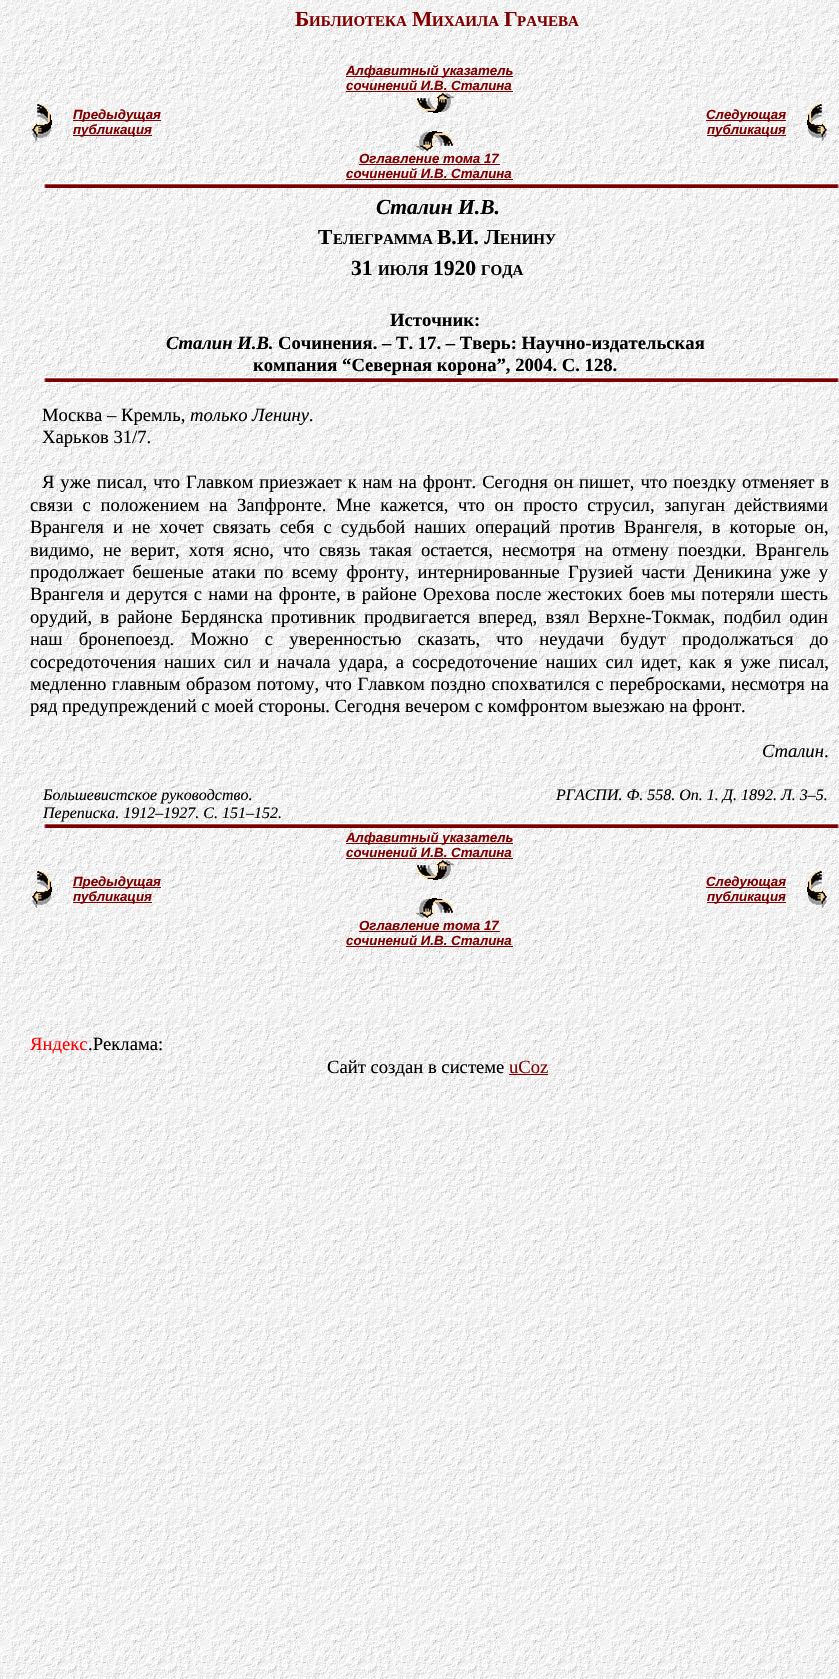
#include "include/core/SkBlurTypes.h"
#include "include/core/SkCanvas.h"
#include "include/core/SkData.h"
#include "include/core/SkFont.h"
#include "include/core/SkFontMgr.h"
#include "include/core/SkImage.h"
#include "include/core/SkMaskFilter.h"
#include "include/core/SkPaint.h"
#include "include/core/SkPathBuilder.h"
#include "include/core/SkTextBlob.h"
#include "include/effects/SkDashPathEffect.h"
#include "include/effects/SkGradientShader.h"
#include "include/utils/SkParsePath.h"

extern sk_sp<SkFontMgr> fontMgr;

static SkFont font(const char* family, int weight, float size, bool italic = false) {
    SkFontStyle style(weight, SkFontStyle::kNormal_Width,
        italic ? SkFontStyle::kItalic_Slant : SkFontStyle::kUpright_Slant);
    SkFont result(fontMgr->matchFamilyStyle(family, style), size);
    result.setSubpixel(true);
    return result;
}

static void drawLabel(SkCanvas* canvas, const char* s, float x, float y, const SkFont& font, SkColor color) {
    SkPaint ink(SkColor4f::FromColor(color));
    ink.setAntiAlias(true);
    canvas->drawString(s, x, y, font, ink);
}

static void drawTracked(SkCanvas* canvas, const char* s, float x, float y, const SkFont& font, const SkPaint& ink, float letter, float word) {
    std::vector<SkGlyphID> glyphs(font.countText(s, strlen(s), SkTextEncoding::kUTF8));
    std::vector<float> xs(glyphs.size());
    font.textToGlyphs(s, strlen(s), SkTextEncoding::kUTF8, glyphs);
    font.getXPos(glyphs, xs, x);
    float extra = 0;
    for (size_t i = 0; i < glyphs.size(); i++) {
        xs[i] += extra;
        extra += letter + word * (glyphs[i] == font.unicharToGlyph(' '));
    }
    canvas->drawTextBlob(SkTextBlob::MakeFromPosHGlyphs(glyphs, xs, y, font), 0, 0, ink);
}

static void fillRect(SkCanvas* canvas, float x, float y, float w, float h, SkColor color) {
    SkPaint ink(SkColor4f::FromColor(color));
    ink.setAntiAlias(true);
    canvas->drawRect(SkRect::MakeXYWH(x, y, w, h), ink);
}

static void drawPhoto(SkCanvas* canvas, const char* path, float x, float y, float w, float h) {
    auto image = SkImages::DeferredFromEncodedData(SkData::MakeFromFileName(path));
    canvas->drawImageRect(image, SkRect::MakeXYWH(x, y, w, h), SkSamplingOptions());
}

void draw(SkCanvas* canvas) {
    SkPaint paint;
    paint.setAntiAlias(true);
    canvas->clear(0xFFFFFFFF);
    drawPhoto(canvas, "assets/img1.png", 0, 0, 839, 1679);
    SkFont font1 = font("Liberation Serif", 700, 21.5f);
    drawLabel(canvas, "Б", 295, 26, font1, 0xFF800000);
    SkFont font2 = font("Liberation Serif", 700, 15);
    drawLabel(canvas, "ИБЛИОТЕКА", 309, 26, font2, 0xFF800000);
    drawLabel(canvas, "М", 412, 26, font1, 0xFF800000);
    drawLabel(canvas, "ИХАИЛА", 432, 26, font2, 0xFF800000);
    drawLabel(canvas, "Г", 504, 26, font1, 0xFF800000);
    drawLabel(canvas, "РАЧЕВА", 517, 26, font2, 0xFF800000);
    drawPhoto(canvas, "assets/img2.png", 32, 104, 20, 37);
    fillRect(canvas, 73, 120, 88, 1, 0xFF800000);
    SkFont font3 = font("Liberation Sans", 700, 13.3f, true);
    drawLabel(canvas, "Предыдущая", 73, 119, font3, 0xFF800000);
    fillRect(canvas, 73, 135, 79, 1, 0xFF800000);
    drawLabel(canvas, "публикация", 73, 134, font3, 0xFF800000);
    fillRect(canvas, 346, 76, 167, 1, 0xFF800000);
    drawLabel(canvas, "Алфавитный указатель", 346, 75, font3, 0xFF800000);
    drawLabel(canvas, "сочинений И.В. Сталина", 346, 90, font3, 0xFF800000);
    fillRect(canvas, 346, 91, 167, 1, 0xFF800000);
    drawPhoto(canvas, "assets/img3.png", 417, 93, 37, 20);
    drawPhoto(canvas, "assets/img4.png", 416, 131, 37, 20);
    drawLabel(canvas, "Оглавление тома 17", 359, 163, font3, 0xFF800000);
    fillRect(canvas, 359, 164, 141, 1, 0xFF800000);
    drawLabel(canvas, "сочинений И.В. Сталина", 346, 178, font3, 0xFF800000);
    fillRect(canvas, 346, 179, 167, 1, 0xFF800000);
    fillRect(canvas, 706, 120, 80, 1, 0xFF800000);
    drawLabel(canvas, "Следующая", 706, 119, font3, 0xFF800000);
    fillRect(canvas, 707, 135, 79, 1, 0xFF800000);
    drawLabel(canvas, "публикация", 707, 134, font3, 0xFF800000);
    drawPhoto(canvas, "assets/img5.png", 807, 104, 20, 37);
    drawPhoto(canvas, "assets/img6.png", 42, 183, 797, 5);
    SkFont font4 = font("Liberation Serif", 700, 21.5f, true);
    drawLabel(canvas, "Сталин И.В.", 376, 214, font4, 0xFF000000);
    drawLabel(canvas, "Т", 318, 244, font1, 0xFF000000);
    drawLabel(canvas, "ЕЛЕГРАММА", 333, 244, font2, 0xFF000000);
    drawLabel(canvas, "В.И. Л", 437, 244, font1, 0xFF000000);
    drawLabel(canvas, "ЕНИНУ", 500, 244, font2, 0xFF000000);
    drawLabel(canvas, "31", 351, 275, font1, 0xFF000000);
    drawLabel(canvas, "ИЮЛЯ", 378, 275, font2, 0xFF000000);
    drawLabel(canvas, "1920", 433, 275, font1, 0xFF000000);
    drawLabel(canvas, "ГОДА", 481, 275, font2, 0xFF000000);
    SkFont font5 = font("Liberation Serif", 700, 18.65f);
    drawLabel(canvas, "Источник:", 390, 326, font5, 0xFF000000);
    SkFont font6 = font("Liberation Serif", 700, 18.65f, true);
    drawLabel(canvas, "Сталин И.В.", 166, 349, font6, 0xFF000000);
    drawLabel(canvas, "Cочинения. – Т. 17. – Тверь: Научно-издательская", 278, 349, font5, 0xFF000000);
    drawLabel(canvas, "компания “Северная корона”, 2004. С. 128.", 253, 371, font5, 0xFF000000);
    drawPhoto(canvas, "assets/img6.png", 42, 377, 797, 5);
    SkFont font7 = font("Liberation Serif", 400, 18.65f);
    drawLabel(canvas, "Москва – Кремль,", 42, 421, font7, 0xFF000000);
    SkFont font8 = font("Liberation Serif", 400, 18.65f, true);
    drawLabel(canvas, "только Ленину.", 190, 421, font8, 0xFF000000);
    drawLabel(canvas, "Харьков 31/7.", 42, 443, font7, 0xFF000000);
    paint.setColor(0xFF000000);
    drawTracked(canvas, "Я уже писал, что Главком приезжает к нам на фронт. Сегодня он пишет, что поездку отменяет в", 42, 488, font7, paint, 0, 1.25f);
    drawTracked(canvas, "связи с положением на Запфронте. Мне кажется, что он просто струсил, запуган действиями", 30, 511, font7, paint, 0, 4.9f);
    drawTracked(canvas, "Врангеля и не хочет связать себя с судьбой наших операций против Врангеля, в которые он,", 30, 533, font7, paint, 0, 4.4f);
    drawTracked(canvas, "видимо, не верит, хотя ясно, что связь такая остается, несмотря на отмену поездки. Врангель", 30, 556, font7, paint, 0, 4.4f);
    drawTracked(canvas, "продолжает бешеные атаки по всему фронту, интернированные Грузией части Деникина уже у", 30, 578, font7, paint, 0, 3.6f);
    drawTracked(canvas, "Врангеля и дерутся с нами на фронте, в районе Орехова после жестоких боев мы потеряли шесть", 30, 600, font7, paint, 0, 1.5f);
    drawTracked(canvas, "орудий, в районе Бердянска противник продвигается вперед, взял Верхне-Токмак, подбил один", 30, 623, font7, paint, 0, 3.6f);
    drawTracked(canvas, "наш бронепоезд. Можно с уверенностью сказать, что неудачи будут продолжаться до", 30, 645, font7, paint, 0, 11.5f);
    drawTracked(canvas, "сосредоточения наших сил и начала удара, а сосредоточение наших сил идет, как я уже писал,", 30, 668, font7, paint, 0, 3.25f);
    drawTracked(canvas, "медленно главным образом потому, что Главком поздно спохватился с перебросками, несмотря на", 30, 690, font7, paint, 0, 1);
    drawLabel(canvas, "ряд предупреждений с моей стороны. Сегодня вечером с комфронтом выезжаю на фронт.", 30, 712, font7, 0xFF000000);
    drawLabel(canvas, "Сталин", 762, 757, font8, 0xFF000000);
    drawLabel(canvas, ".", 824, 757, font7, 0xFF000000);
    SkFont font9 = font("Liberation Serif", 400, 16, true);
    drawLabel(canvas, "Большевистское руководство.", 43, 800, font9, 0xFF000000);
    drawLabel(canvas, "Переписка. 1912–1927. С. 151–152.", 43, 818, font9, 0xFF000000);
    drawLabel(canvas, "РГАСПИ. Ф. 558. Оп. 1. Д. 1892. Л. 3–5.", 556, 800, font9, 0xFF000000);
    drawPhoto(canvas, "assets/img6.png", 42, 823, 797, 5);
    drawPhoto(canvas, "assets/img7.png", 32, 871, 20, 37);
    fillRect(canvas, 73, 887, 88, 1, 0xFF800000);
    drawLabel(canvas, "Предыдущая", 73, 886, font3, 0xFF800000);
    fillRect(canvas, 73, 902, 79, 1, 0xFF800000);
    drawLabel(canvas, "публикация", 73, 901, font3, 0xFF800000);
    fillRect(canvas, 346, 843, 167, 1, 0xFF800000);
    drawLabel(canvas, "Алфавитный указатель", 346, 842, font3, 0xFF800000);
    drawLabel(canvas, "сочинений И.В. Сталина", 346, 857, font3, 0xFF800000);
    fillRect(canvas, 346, 858, 167, 1, 0xFF800000);
    drawPhoto(canvas, "assets/img8.png", 417, 860, 37, 20);
    drawPhoto(canvas, "assets/img9.png", 416, 898, 37, 20);
    drawLabel(canvas, "Оглавление тома 17", 359, 930, font3, 0xFF800000);
    fillRect(canvas, 359, 931, 141, 1, 0xFF800000);
    drawLabel(canvas, "сочинений И.В. Сталина", 346, 945, font3, 0xFF800000);
    fillRect(canvas, 346, 946, 167, 1, 0xFF800000);
    fillRect(canvas, 706, 887, 80, 1, 0xFF800000);
    drawLabel(canvas, "Следующая", 706, 886, font3, 0xFF800000);
    fillRect(canvas, 707, 902, 79, 1, 0xFF800000);
    drawLabel(canvas, "публикация", 707, 901, font3, 0xFF800000);
    drawPhoto(canvas, "assets/img10.png", 807, 871, 20, 37);
    drawLabel(canvas, "Яндекс", 30, 1050, font7, 0xFFFF0000);
    drawLabel(canvas, ".Реклама:", 88, 1050, font7, 0xFF000000);
    drawLabel(canvas, "Сайт создан в системе", 327, 1073, font7, 0xFF000000);
    drawLabel(canvas, "uCoz", 509, 1073, font7, 0xFF800000);
    fillRect(canvas, 509, 1074, 39, 1, 0xFF800000);
}
